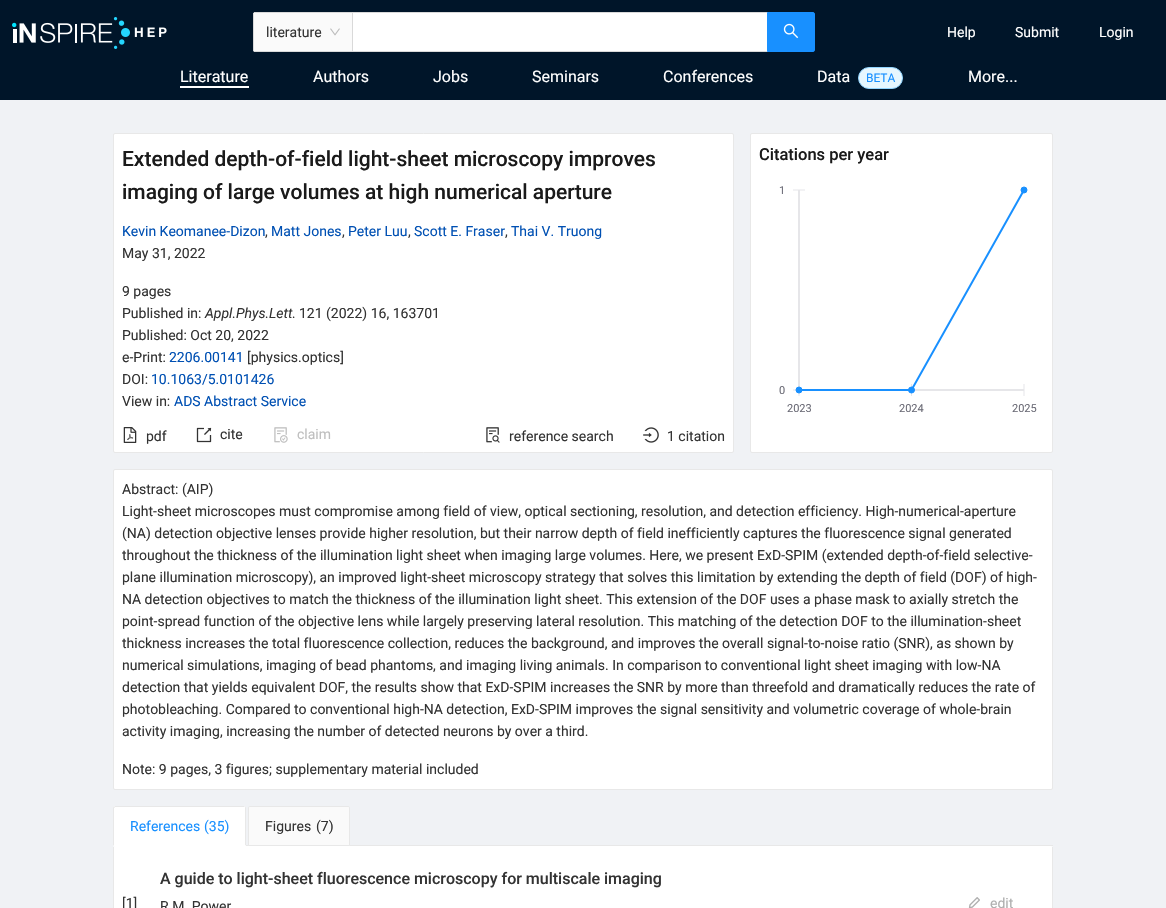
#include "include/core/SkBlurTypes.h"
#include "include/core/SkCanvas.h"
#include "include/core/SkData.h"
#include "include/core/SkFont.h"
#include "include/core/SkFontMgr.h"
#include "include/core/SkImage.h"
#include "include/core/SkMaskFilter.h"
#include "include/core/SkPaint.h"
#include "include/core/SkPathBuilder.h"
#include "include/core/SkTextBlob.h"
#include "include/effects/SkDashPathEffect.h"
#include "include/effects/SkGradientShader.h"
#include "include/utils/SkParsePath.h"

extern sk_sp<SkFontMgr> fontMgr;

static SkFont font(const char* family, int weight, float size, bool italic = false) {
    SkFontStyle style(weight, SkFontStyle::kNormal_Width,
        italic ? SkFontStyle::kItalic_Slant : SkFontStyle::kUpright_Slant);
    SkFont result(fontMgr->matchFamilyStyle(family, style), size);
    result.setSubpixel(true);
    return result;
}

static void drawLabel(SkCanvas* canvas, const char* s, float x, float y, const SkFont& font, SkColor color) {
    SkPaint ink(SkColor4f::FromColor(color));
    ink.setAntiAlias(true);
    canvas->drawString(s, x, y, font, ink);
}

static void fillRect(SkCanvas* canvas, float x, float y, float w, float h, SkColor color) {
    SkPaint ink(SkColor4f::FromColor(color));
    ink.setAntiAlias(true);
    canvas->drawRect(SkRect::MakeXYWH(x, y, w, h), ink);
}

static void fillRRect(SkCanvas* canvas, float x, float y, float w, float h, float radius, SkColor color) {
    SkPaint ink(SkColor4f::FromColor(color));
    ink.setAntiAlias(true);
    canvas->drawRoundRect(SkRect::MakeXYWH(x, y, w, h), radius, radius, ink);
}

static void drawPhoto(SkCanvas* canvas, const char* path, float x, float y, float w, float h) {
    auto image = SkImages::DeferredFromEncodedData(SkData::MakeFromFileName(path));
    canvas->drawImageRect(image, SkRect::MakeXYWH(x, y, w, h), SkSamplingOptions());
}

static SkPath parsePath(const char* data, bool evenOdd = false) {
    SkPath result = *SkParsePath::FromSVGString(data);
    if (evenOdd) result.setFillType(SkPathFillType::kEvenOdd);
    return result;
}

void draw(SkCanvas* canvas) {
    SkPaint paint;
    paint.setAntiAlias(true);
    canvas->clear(0xFFF0F2F5);
    fillRect(canvas, 0, 0, 1166, 100, 0xFF001529);
    drawPhoto(canvas, "assets/img1.png", 12, 17, 155, 32);
    paint.setColor(0xFFFAFAFA);
    canvas->drawPath(parsePath("M255 12H352V52H255C254 52 253 51 253 50V14C253 13 254 12 255 12Z"), paint);
    fillRect(canvas, 254, 12, 98, 1, 0xFFD9D9D9);
    fillRect(canvas, 254, 51, 98, 1, 0xFFD9D9D9);
    fillRect(canvas, 253, 13, 1, 38, 0xFFD9D9D9);
    SkFont font1 = font("Roboto", 400, 14);
    drawLabel(canvas, "literature", 266, 37, font1, 0xFF333333);
    drawPhoto(canvas, "assets/img2.png", 330, 28, 10, 8);
    paint.setColor(0xFFFFFFFF);
    canvas->drawRect(SkRect::MakeXYWH(352.5f, 12.5f, 415, 39), paint);
    paint.setStroke(true);
    paint.setStrokeWidth(1);
    paint.setColor(0xFFD9D9D9);
    canvas->drawRect(SkRect::MakeXYWH(352.5f, 12.5f, 415, 39), paint);
    paint.setStroke(false);
    paint.setColor(0xFF1890FF);
    canvas->drawPath(parsePath("M767.5 12.5H813C814 12.5 814.5 13 814.5 14V50C814.5 51 814 51.5 813 51.5H767.5Z"), paint);
    paint.setStroke(true);
    canvas->drawPath(parsePath("M767.5 12.5H813C814 12.5 814.5 13 814.5 14V50C814.5 51 814 51.5 813 51.5H767.5Z"), paint);
    drawPhoto(canvas, "assets/img3.png", 783, 23, 16, 16);
    drawLabel(canvas, "Help", 947, 37, font1, 0xFFFFFFFF);
    drawLabel(canvas, "Submit", 1015, 37, font1, 0xFFFFFFFF);
    drawLabel(canvas, "Login", 1099, 37, font1, 0xFFFFFFFF);
    SkFont font2 = font("Roboto", 400, 16);
    drawLabel(canvas, "Literature", 180, 82, font2, 0xFFFFFFFF);
    fillRect(canvas, 180, 86, 69, 2, 0xFFFFFFFF);
    drawLabel(canvas, "Authors", 313, 82, font2, 0xFFFFFFFF);
    drawLabel(canvas, "Jobs", 433, 82, font2, 0xFFFFFFFF);
    drawLabel(canvas, "Seminars", 532, 82, font2, 0xFFFFFFFF);
    drawLabel(canvas, "Conferences", 663, 82, font2, 0xFFFFFFFF);
    drawLabel(canvas, "Data", 817, 82, font2, 0xFFFFFFFF);
    paint.setStroke(false);
    paint.setColor(0xFFE6F7FF);
    canvas->drawRoundRect(SkRect::MakeXYWH(858.5f, 67.5f, 44, 21), 10.5f, 10.5f, paint);
    paint.setStroke(true);
    paint.setColor(0xFF91D5FF);
    canvas->drawRoundRect(SkRect::MakeXYWH(858.5f, 67.5f, 44, 21), 10.5f, 10.5f, paint);
    SkFont font3 = font("Roboto", 400, 12);
    drawLabel(canvas, "BETA", 866, 82, font3, 0xFF1890FF);
    drawLabel(canvas, "More...", 968, 82, font2, 0xFFFFFFFF);
    paint.setStroke(false);
    paint.setColor(0xFFFFFFFF);
    canvas->drawRoundRect(SkRect::MakeXYWH(113.5f, 133.5f, 620, 319), 1.5f, 1.5f, paint);
    paint.setStroke(true);
    paint.setColor(0xFFE8E8E8);
    canvas->drawRoundRect(SkRect::MakeXYWH(113.5f, 133.5f, 620, 319), 1.5f, 1.5f, paint);
    SkFont font4 = font("Roboto", 500, 21);
    drawLabel(canvas, "Extended depth-of-field light-sheet microscopy improves", 122, 166, font4, 0xFF1A1A1A);
    drawLabel(canvas, "imaging of large volumes at high numerical aperture", 122, 199, font4, 0xFF1A1A1A);
    drawLabel(canvas, "Kevin Keomanee-Dizon", 122, 236, font1, 0xFF0050B3);
    drawLabel(canvas, ",", 265, 236, font1, 0xFF333333);
    drawLabel(canvas, "Matt Jones", 271, 236, font1, 0xFF0050B3);
    drawLabel(canvas, ",", 342, 236, font1, 0xFF333333);
    drawLabel(canvas, "Peter Luu", 348, 236, font1, 0xFF0050B3);
    drawLabel(canvas, ",", 408, 236, font1, 0xFF333333);
    drawLabel(canvas, "Scott E. Fraser", 414, 236, font1, 0xFF0050B3);
    drawLabel(canvas, ",", 505, 236, font1, 0xFF333333);
    drawLabel(canvas, "Thai V. Truong", 511, 236, font1, 0xFF0050B3);
    drawLabel(canvas, "May 31, 2022", 122, 258, font1, 0xFF333333);
    drawLabel(canvas, "9 pages", 122, 296, font1, 0xFF333333);
    drawLabel(canvas, "Published in:", 122, 318, font1, 0xFF333333);
    SkFont font5 = font("Roboto", 400, 14, true);
    drawLabel(canvas, "Appl.Phys.Lett.", 205, 318, font5, 0xFF333333);
    drawLabel(canvas, "121 (2022) 16, 163701", 299, 318, font1, 0xFF333333);
    drawLabel(canvas, "Published: Oct 20, 2022", 122, 340, font1, 0xFF333333);
    drawLabel(canvas, "e-Print:", 122, 362, font1, 0xFF333333);
    drawLabel(canvas, "2206.00141", 169, 362, font1, 0xFF0050B3);
    drawLabel(canvas, "[physics.optics]", 247, 362, font1, 0xFF333333);
    drawLabel(canvas, "DOI:", 122, 384, font1, 0xFF333333);
    drawLabel(canvas, "10.1063/5.0101426", 151, 384, font1, 0xFF0050B3);
    drawLabel(canvas, "View in:", 122, 406, font1, 0xFF333333);
    drawLabel(canvas, "ADS Abstract Service", 174, 406, font1, 0xFF0050B3);
    drawPhoto(canvas, "assets/img4.png", 123, 427, 14, 16);
    drawLabel(canvas, "pdf", 146, 441, font1, 0xFF333333);
    drawPhoto(canvas, "assets/img5.png", 196, 427, 16, 16);
    drawLabel(canvas, "cite", 220, 439, font1, 0xFF333333);
    drawPhoto(canvas, "assets/img6.png", 274, 427, 14, 16);
    drawLabel(canvas, "claim", 297, 439, font1, 0xFFBFBFBF);
    drawPhoto(canvas, "assets/img7.png", 486, 427, 14, 16);
    drawLabel(canvas, "reference search", 509, 441, font1, 0xFF333333);
    drawPhoto(canvas, "assets/img8.png", 643, 427, 16, 16);
    drawLabel(canvas, "1 citation", 667, 441, font1, 0xFF333333);
    paint.setStroke(false);
    paint.setColor(0xFFFFFFFF);
    canvas->drawRoundRect(SkRect::MakeXYWH(750.5f, 133.5f, 302, 319), 1.5f, 1.5f, paint);
    paint.setStroke(true);
    paint.setColor(0xFFE8E8E8);
    canvas->drawRoundRect(SkRect::MakeXYWH(750.5f, 133.5f, 302, 319), 1.5f, 1.5f, paint);
    SkFont font6 = font("Roboto", 500, 16.5f);
    drawLabel(canvas, "Citations per year", 759, 160, font6, 0xFF1A1A1A);
    fillRect(canvas, 914, 389, 110, 2, 0xFFE6E6E9);
    paint.setColor(0xFFE6E6E9);
    canvas->drawPath(parsePath("M799 384V396"), paint);
    fillRect(canvas, 911, 384, 1, 12, 0xFFE6E6E9);
    canvas->drawPath(parsePath("M1024 384V396"), paint);
    fillRect(canvas, 798, 190, 2, 200, 0xFFE6E6E9);
    canvas->drawPath(parsePath("M805 390H793"), paint);
    canvas->drawPath(parsePath("M805 190H793"), paint);
    paint.setStrokeWidth(2);
    paint.setColor(0xFF1890FF);
    canvas->drawPath(parsePath("M799 390H911.5L1024 190"), paint);
    paint.setStroke(false);
    canvas->drawCircle(799, 390, 3, paint);
    paint.setStroke(true);
    paint.setStrokeWidth(1);
    canvas->drawCircle(799, 390, 3, paint);
    paint.setStroke(false);
    canvas->drawCircle(911.5f, 390, 3, paint);
    paint.setStroke(true);
    canvas->drawCircle(911.5f, 390, 3, paint);
    paint.setStroke(false);
    canvas->drawCircle(1024, 190, 3, paint);
    paint.setStroke(true);
    canvas->drawCircle(1024, 190, 3, paint);
    SkFont font7 = font("Roboto", 400, 11);
    drawLabel(canvas, "1", 779, 194, font7, 0xFF6B6B76);
    drawLabel(canvas, "0", 779, 394, font7, 0xFF6B6B76);
    drawLabel(canvas, "2023", 787, 412, font7, 0xFF6B6B76);
    drawLabel(canvas, "2024", 899, 412, font7, 0xFF6B6B76);
    drawLabel(canvas, "2025", 1012, 412, font7, 0xFF6B6B76);
    paint.setStroke(false);
    paint.setColor(0xFFFFFFFF);
    canvas->drawRoundRect(SkRect::MakeXYWH(113.5f, 469.5f, 939, 320), 1.5f, 1.5f, paint);
    paint.setStroke(true);
    paint.setColor(0xFFE8E8E8);
    canvas->drawRoundRect(SkRect::MakeXYWH(113.5f, 469.5f, 939, 320), 1.5f, 1.5f, paint);
    drawLabel(canvas, "Abstract: (AIP)", 122, 494, font1, 0xFF333333);
    drawLabel(canvas, "Light-sheet microscopes must compromise among field of view, optical sectioning, resolution, and detection efficiency. High-numerical-aperture", 122, 516, font1, 0xFF333333);
    drawLabel(canvas, "(NA) detection objective lenses provide higher resolution, but their narrow depth of field inefficiently captures the fluorescence signal generated", 122, 538, font1, 0xFF333333);
    drawLabel(canvas, "throughout the thickness of the illumination light sheet when imaging large volumes. Here, we present ExD-SPIM (extended depth-of-field selective-", 122, 560, font1, 0xFF333333);
    drawLabel(canvas, "plane illumination microscopy), an improved light-sheet microscopy strategy that solves this limitation by extending the depth of field (DOF) of high-", 122, 582, font1, 0xFF333333);
    drawLabel(canvas, "NA detection objectives to match the thickness of the illumination light sheet. This extension of the DOF uses a phase mask to axially stretch the", 122, 604, font1, 0xFF333333);
    drawLabel(canvas, "point-spread function of the objective lens while largely preserving lateral resolution. This matching of the detection DOF to the illumination-sheet", 122, 626, font1, 0xFF333333);
    drawLabel(canvas, "thickness increases the total fluorescence collection, reduces the background, and improves the overall signal-to-noise ratio (SNR), as shown by", 122, 648, font1, 0xFF333333);
    drawLabel(canvas, "numerical simulations, imaging of bead phantoms, and imaging living animals. In comparison to conventional light sheet imaging with low-NA", 122, 670, font1, 0xFF333333);
    drawLabel(canvas, "detection that yields equivalent DOF, the results show that ExD-SPIM increases the SNR by more than threefold and dramatically reduces the rate of", 122, 692, font1, 0xFF333333);
    drawLabel(canvas, "photobleaching. Compared to conventional high-NA detection, ExD-SPIM improves the signal sensitivity and volumetric coverage of whole-brain", 122, 714, font1, 0xFF333333);
    drawLabel(canvas, "activity imaging, increasing the number of detected neurons by over a third.", 122, 736, font1, 0xFF333333);
    drawLabel(canvas, "Note: 9 pages, 3 figures; supplementary material included", 122, 774, font1, 0xFF333333);
    paint.setStroke(false);
    paint.setColor(0xFFFFFFFF);
    canvas->drawPath(parsePath("M115 806H244C245 806 246 807 246 808V846H113V808C113 807 114 806 115 806Z"), paint);
    paint.setColor(0xFFE8E8E8);
    canvas->drawPath(parsePath("M115 806L114 807V808L115 807H245L244 806Z"), paint);
    canvas->drawPath(parsePath("M246 846V808L245.5 806.5L245 807V845Z"), paint);
    paint.setColor(0xFFFFFFFF);
    canvas->drawPath(parsePath("M246 846L245 845H114L113 846Z"), paint);
    paint.setColor(0xFFE8E8E8);
    canvas->drawPath(parsePath("M113 846L114 845V808L114.5 807.5L113.5 806.5L113 808Z"), paint);
    drawLabel(canvas, "References", 130, 831, font1, 0xFF1890FF);
    drawLabel(canvas, "(35)", 204, 831, font1, 0xFF1890FF);
    fillRect(canvas, 246, 845, 807, 1, 0xFFE8E8E8);
    paint.setColor(0xFFFAFAFA);
    canvas->drawPath(parsePath("M250 806.5H348C349 806.5 349.5 807 349.5 808V845.5H248.5V808C248.5 807 249 806.5 250 806.5Z"), paint);
    paint.setStroke(true);
    paint.setColor(0xFFE8E8E8);
    canvas->drawPath(parsePath("M250 806.5H348C349 806.5 349.5 807 349.5 808V845.5H248.5V808C248.5 807 249 806.5 250 806.5Z"), paint);
    drawLabel(canvas, "Figures", 265, 831, font1, 0xFF333333);
    drawLabel(canvas, "(7)", 316, 831, font1, 0xFF333333);
    fillRRect(canvas, 113, 846, 940, 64, 2, 0xFFFFFFFF);
    fillRect(canvas, 1052, 847, 1, 61, 0xFFE8E8E8);
    fillRect(canvas, 113, 847, 1, 61, 0xFFE8E8E8);
    drawLabel(canvas, "[1]", 122, 908, font1, 0xFF333333);
    SkFont font8 = font("Roboto", 500, 16);
    drawLabel(canvas, "A guide to light-sheet fluorescence microscopy for multiscale imaging", 160, 884, font8, 0xFF333333);
    drawLabel(canvas, "R.M. Power", 160, 911, font1, 0xFF333333);
    drawPhoto(canvas, "assets/img9.png", 968, 897, 12, 11);
    drawLabel(canvas, "edit", 990, 908, font1, 0xFFAFAFAF);
}
